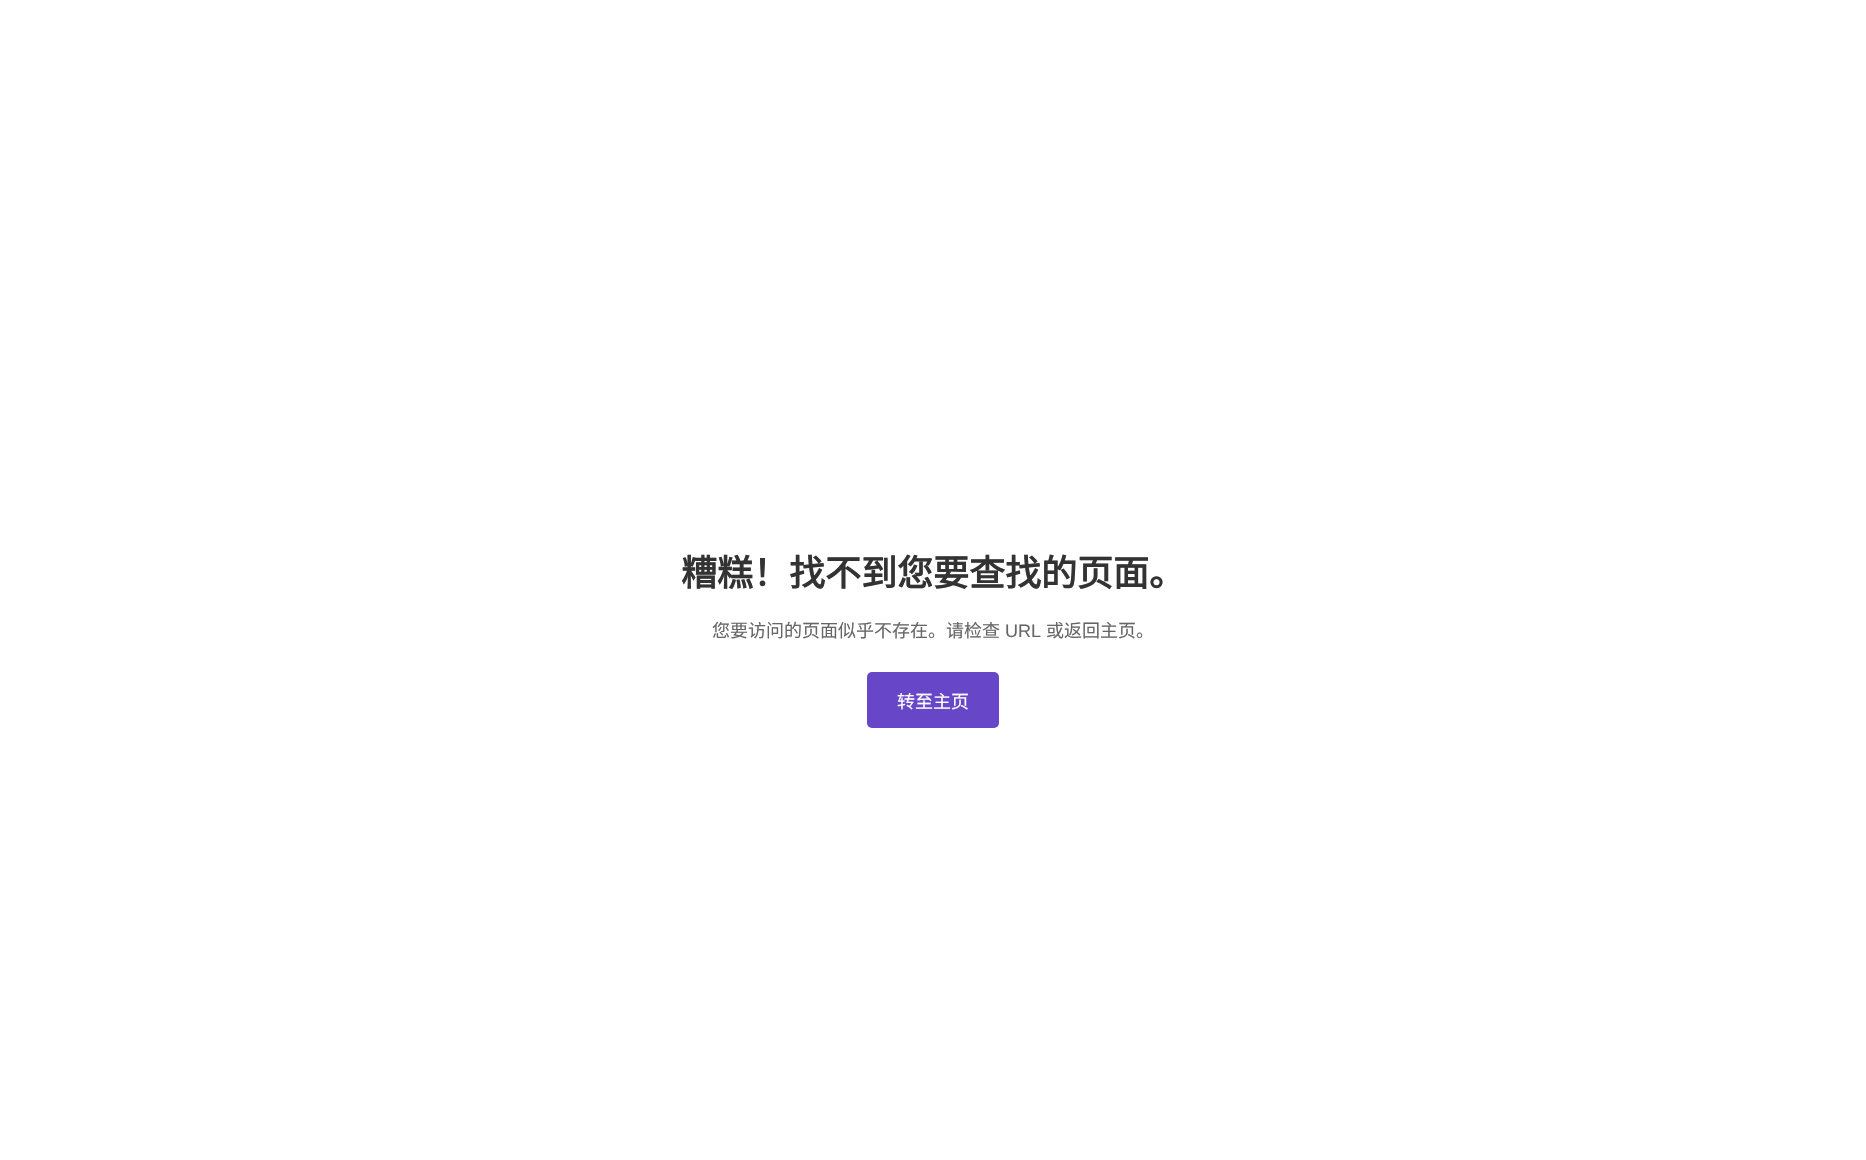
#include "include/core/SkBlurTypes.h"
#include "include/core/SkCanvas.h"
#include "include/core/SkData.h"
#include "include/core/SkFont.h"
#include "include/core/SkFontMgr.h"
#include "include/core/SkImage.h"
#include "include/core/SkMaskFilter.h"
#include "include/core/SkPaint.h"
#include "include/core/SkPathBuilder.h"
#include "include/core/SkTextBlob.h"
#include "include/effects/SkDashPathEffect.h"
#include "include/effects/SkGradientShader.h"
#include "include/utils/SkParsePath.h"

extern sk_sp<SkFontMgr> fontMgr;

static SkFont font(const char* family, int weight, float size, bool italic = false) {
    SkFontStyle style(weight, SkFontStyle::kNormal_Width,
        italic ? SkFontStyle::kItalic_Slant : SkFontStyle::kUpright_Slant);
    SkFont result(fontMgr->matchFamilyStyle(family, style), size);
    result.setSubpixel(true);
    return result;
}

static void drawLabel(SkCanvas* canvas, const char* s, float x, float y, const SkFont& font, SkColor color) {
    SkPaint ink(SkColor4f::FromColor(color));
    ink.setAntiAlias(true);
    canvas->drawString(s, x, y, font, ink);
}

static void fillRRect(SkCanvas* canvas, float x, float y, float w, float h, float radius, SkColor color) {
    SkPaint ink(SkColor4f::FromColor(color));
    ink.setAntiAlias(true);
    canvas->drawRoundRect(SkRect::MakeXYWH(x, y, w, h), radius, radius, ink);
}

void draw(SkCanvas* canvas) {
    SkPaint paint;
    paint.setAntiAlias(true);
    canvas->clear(0xFFFFFFFF);
    SkFont font1 = font("Noto Sans CJK SC", 700, 36);
    drawLabel(canvas, "糟糕！找不到您要查找的页面。", 681, 586, font1, 0xFF333333);
    SkFont font2 = font("Noto Sans CJK SC", 400, 18);
    drawLabel(canvas, "您要访问的页面似乎不存在。请检查", 712, 637, font2, 0xFF666666);
    SkFont font3 = font("Liberation Sans", 400, 18);
    drawLabel(canvas, "URL", 1005, 637, font3, 0xFF666666);
    drawLabel(canvas, "或返回主页。", 1046, 637, font2, 0xFF666666);
    fillRRect(canvas, 867, 672, 132, 56, 5, 0xFF6747C7);
    drawLabel(canvas, "转至主页", 897, 708, font2, 0xFFFFFFFF);
}
